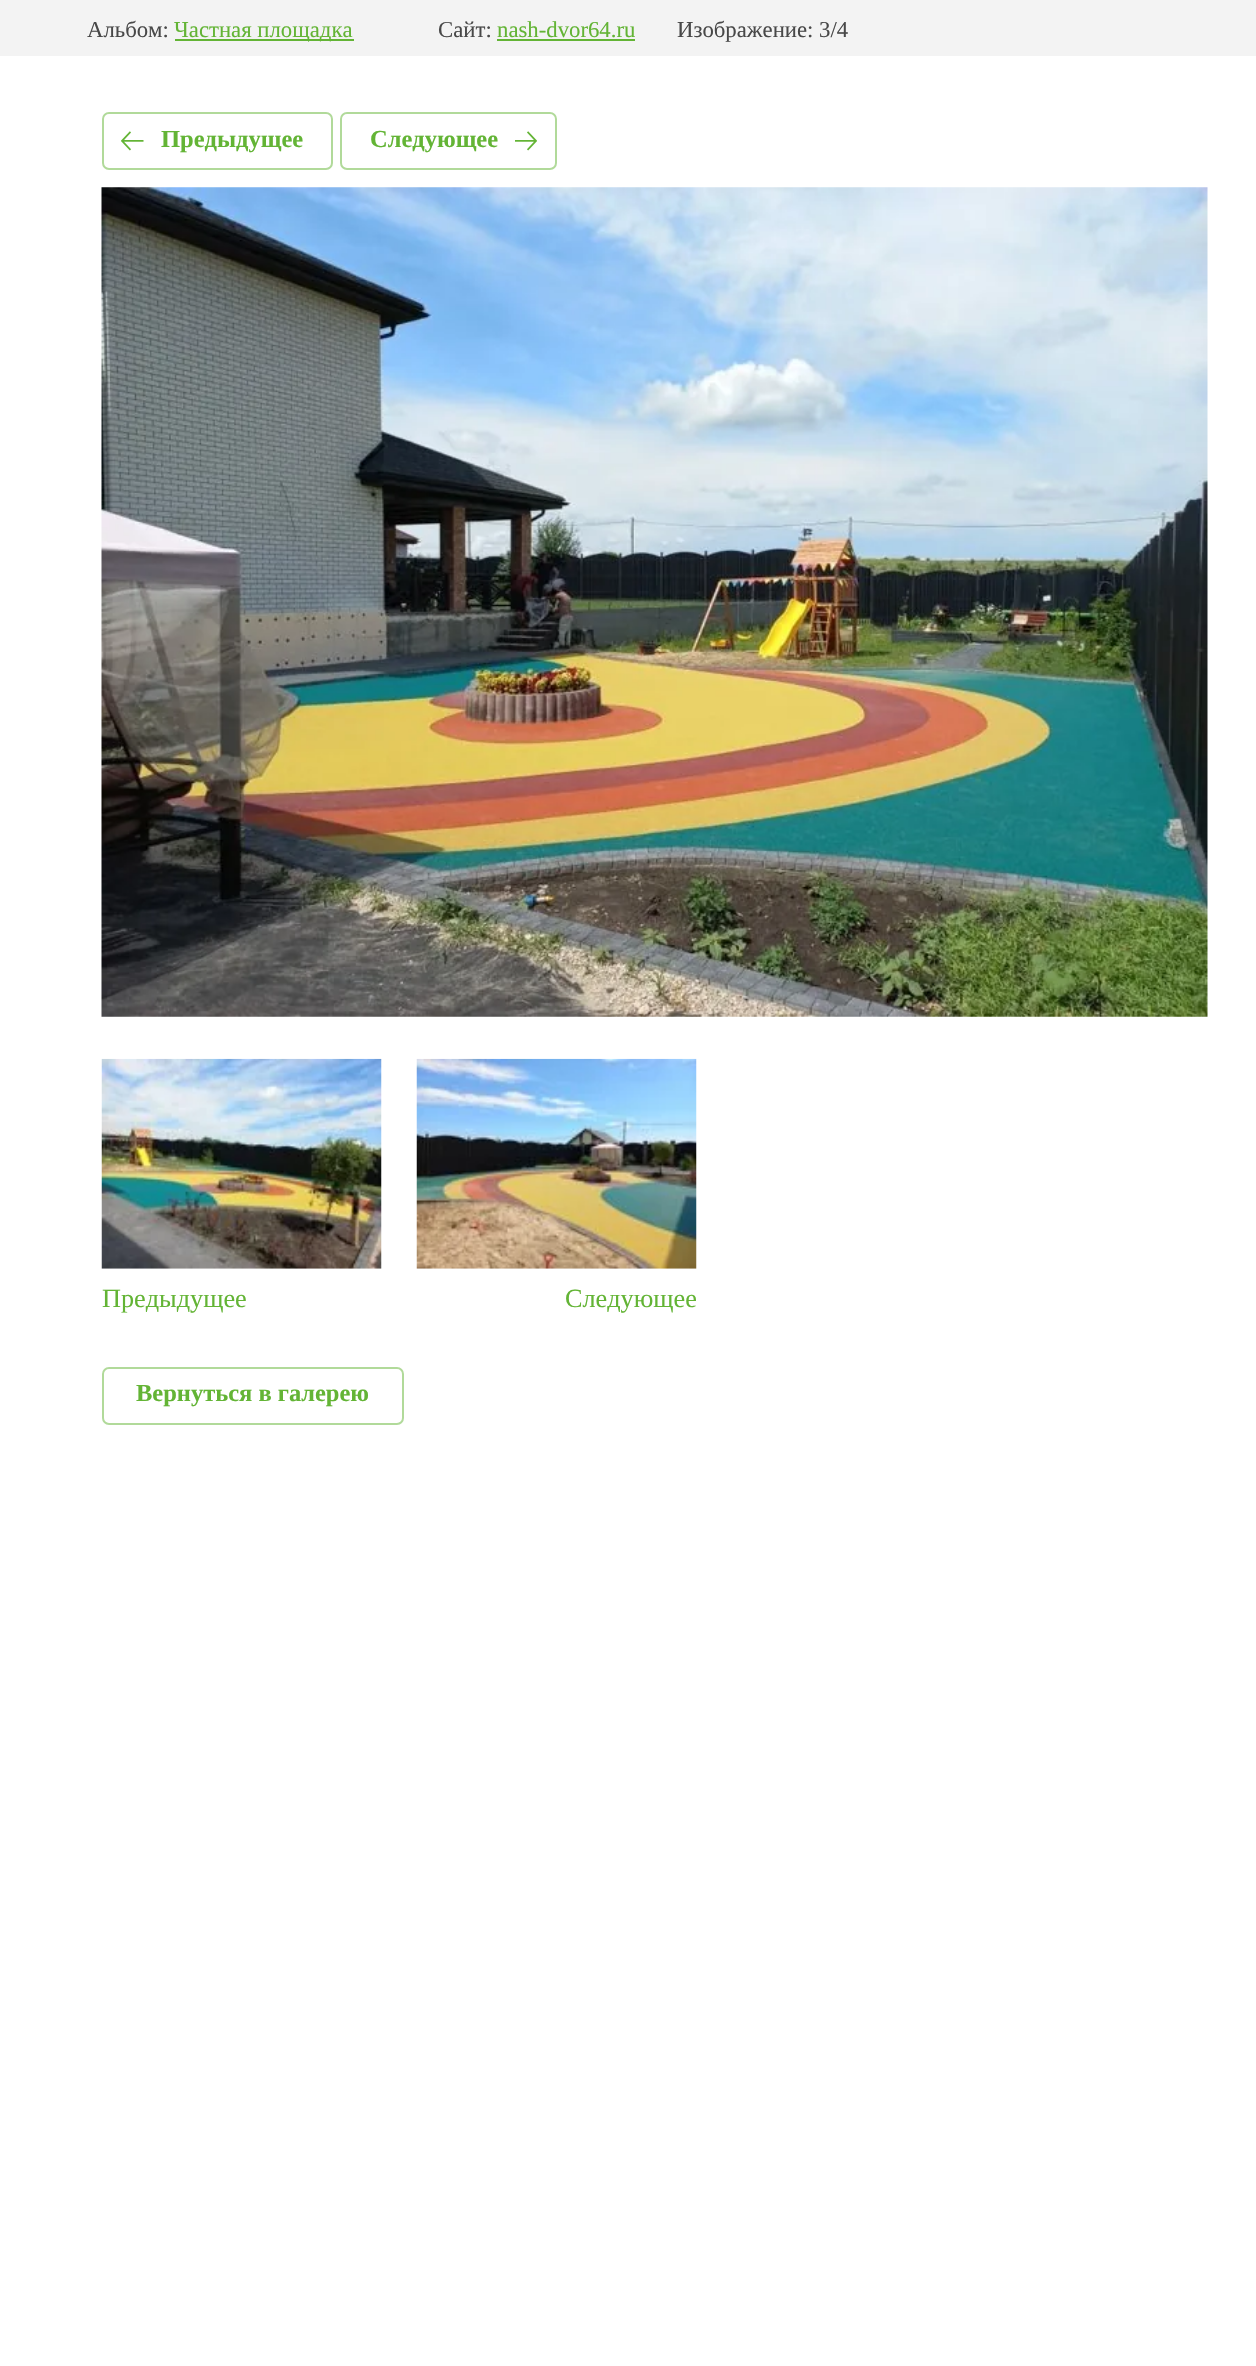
#include "include/core/SkBlurTypes.h"
#include "include/core/SkCanvas.h"
#include "include/core/SkData.h"
#include "include/core/SkFont.h"
#include "include/core/SkFontMgr.h"
#include "include/core/SkImage.h"
#include "include/core/SkMaskFilter.h"
#include "include/core/SkPaint.h"
#include "include/core/SkPathBuilder.h"
#include "include/core/SkTextBlob.h"
#include "include/effects/SkDashPathEffect.h"
#include "include/effects/SkGradientShader.h"
#include "include/utils/SkParsePath.h"

extern sk_sp<SkFontMgr> fontMgr;

static SkFont font(const char* family, int weight, float size, bool italic = false) {
    SkFontStyle style(weight, SkFontStyle::kNormal_Width,
        italic ? SkFontStyle::kItalic_Slant : SkFontStyle::kUpright_Slant);
    SkFont result(fontMgr->matchFamilyStyle(family, style), size);
    result.setSubpixel(true);
    return result;
}

static void drawLabel(SkCanvas* canvas, const char* s, float x, float y, const SkFont& font, SkColor color) {
    SkPaint ink(SkColor4f::FromColor(color));
    ink.setAntiAlias(true);
    canvas->drawString(s, x, y, font, ink);
}

static void fillRect(SkCanvas* canvas, float x, float y, float w, float h, SkColor color) {
    SkPaint ink(SkColor4f::FromColor(color));
    ink.setAntiAlias(true);
    canvas->drawRect(SkRect::MakeXYWH(x, y, w, h), ink);
}

static void drawPhoto(SkCanvas* canvas, const char* path, float x, float y, float w, float h) {
    auto image = SkImages::DeferredFromEncodedData(SkData::MakeFromFileName(path));
    canvas->drawImageRect(image, SkRect::MakeXYWH(x, y, w, h), SkSamplingOptions());
}

void draw(SkCanvas* canvas) {
    SkPaint paint;
    paint.setAntiAlias(true);
    canvas->clear(0xFFFFFFFF);
    fillRect(canvas, 0, 0, 1256, 56, 0xFFF3F3F3);
    SkFont font1 = font("Liberation Serif", 400, 22.75f);
    drawLabel(canvas, "Альбом:", 87, 37, font1, 0xFF484848);
    fillRect(canvas, 175, 39, 179, 2, 0xFF63B435);
    drawLabel(canvas, "Частная площадка", 174, 37, font1, 0xFF63B435);
    drawLabel(canvas, "Сайт:", 438, 37, font1, 0xFF484848);
    drawLabel(canvas, "nash-dvor64.ru", 497, 37, font1, 0xFF63B435);
    fillRect(canvas, 497, 39, 138, 2, 0xFF63B435);
    drawLabel(canvas, "Изображение: 3/4", 677, 37, font1, 0xFF484848);
    paint.setStroke(true);
    paint.setStrokeWidth(2);
    paint.setColor(0xFFB1DA9A);
    canvas->drawRoundRect(SkRect::MakeXYWH(103, 113, 229, 56), 6, 6, paint);
    drawPhoto(canvas, "assets/img1.png", 121, 131, 23, 20);
    SkFont font2 = font("Liberation Serif", 700, 24.5f);
    drawLabel(canvas, "Предыдущее", 161, 147, font2, 0xFF63B435);
    canvas->drawRoundRect(SkRect::MakeXYWH(341, 113, 215, 56), 6, 6, paint);
    drawLabel(canvas, "Следующее", 370, 147, font2, 0xFF63B435);
    drawPhoto(canvas, "assets/img2.png", 515, 131, 22, 20);
    drawPhoto(canvas, "assets/img3.png", 101, 187, 1107, 830);
    drawPhoto(canvas, "assets/img4.png", 101, 1058, 281, 211);
    SkFont font3 = font("Liberation Serif", 400, 26.25f);
    drawLabel(canvas, "Предыдущее", 102, 1307, font3, 0xFF63B435);
    drawPhoto(canvas, "assets/img5.png", 416, 1058, 281, 211);
    drawLabel(canvas, "Следующее", 565, 1307, font3, 0xFF63B435);
    canvas->drawRoundRect(SkRect::MakeXYWH(103, 1368, 300, 56), 6, 6, paint);
    drawLabel(canvas, "Вернуться в галерею", 136, 1401, font2, 0xFF63B435);
}
